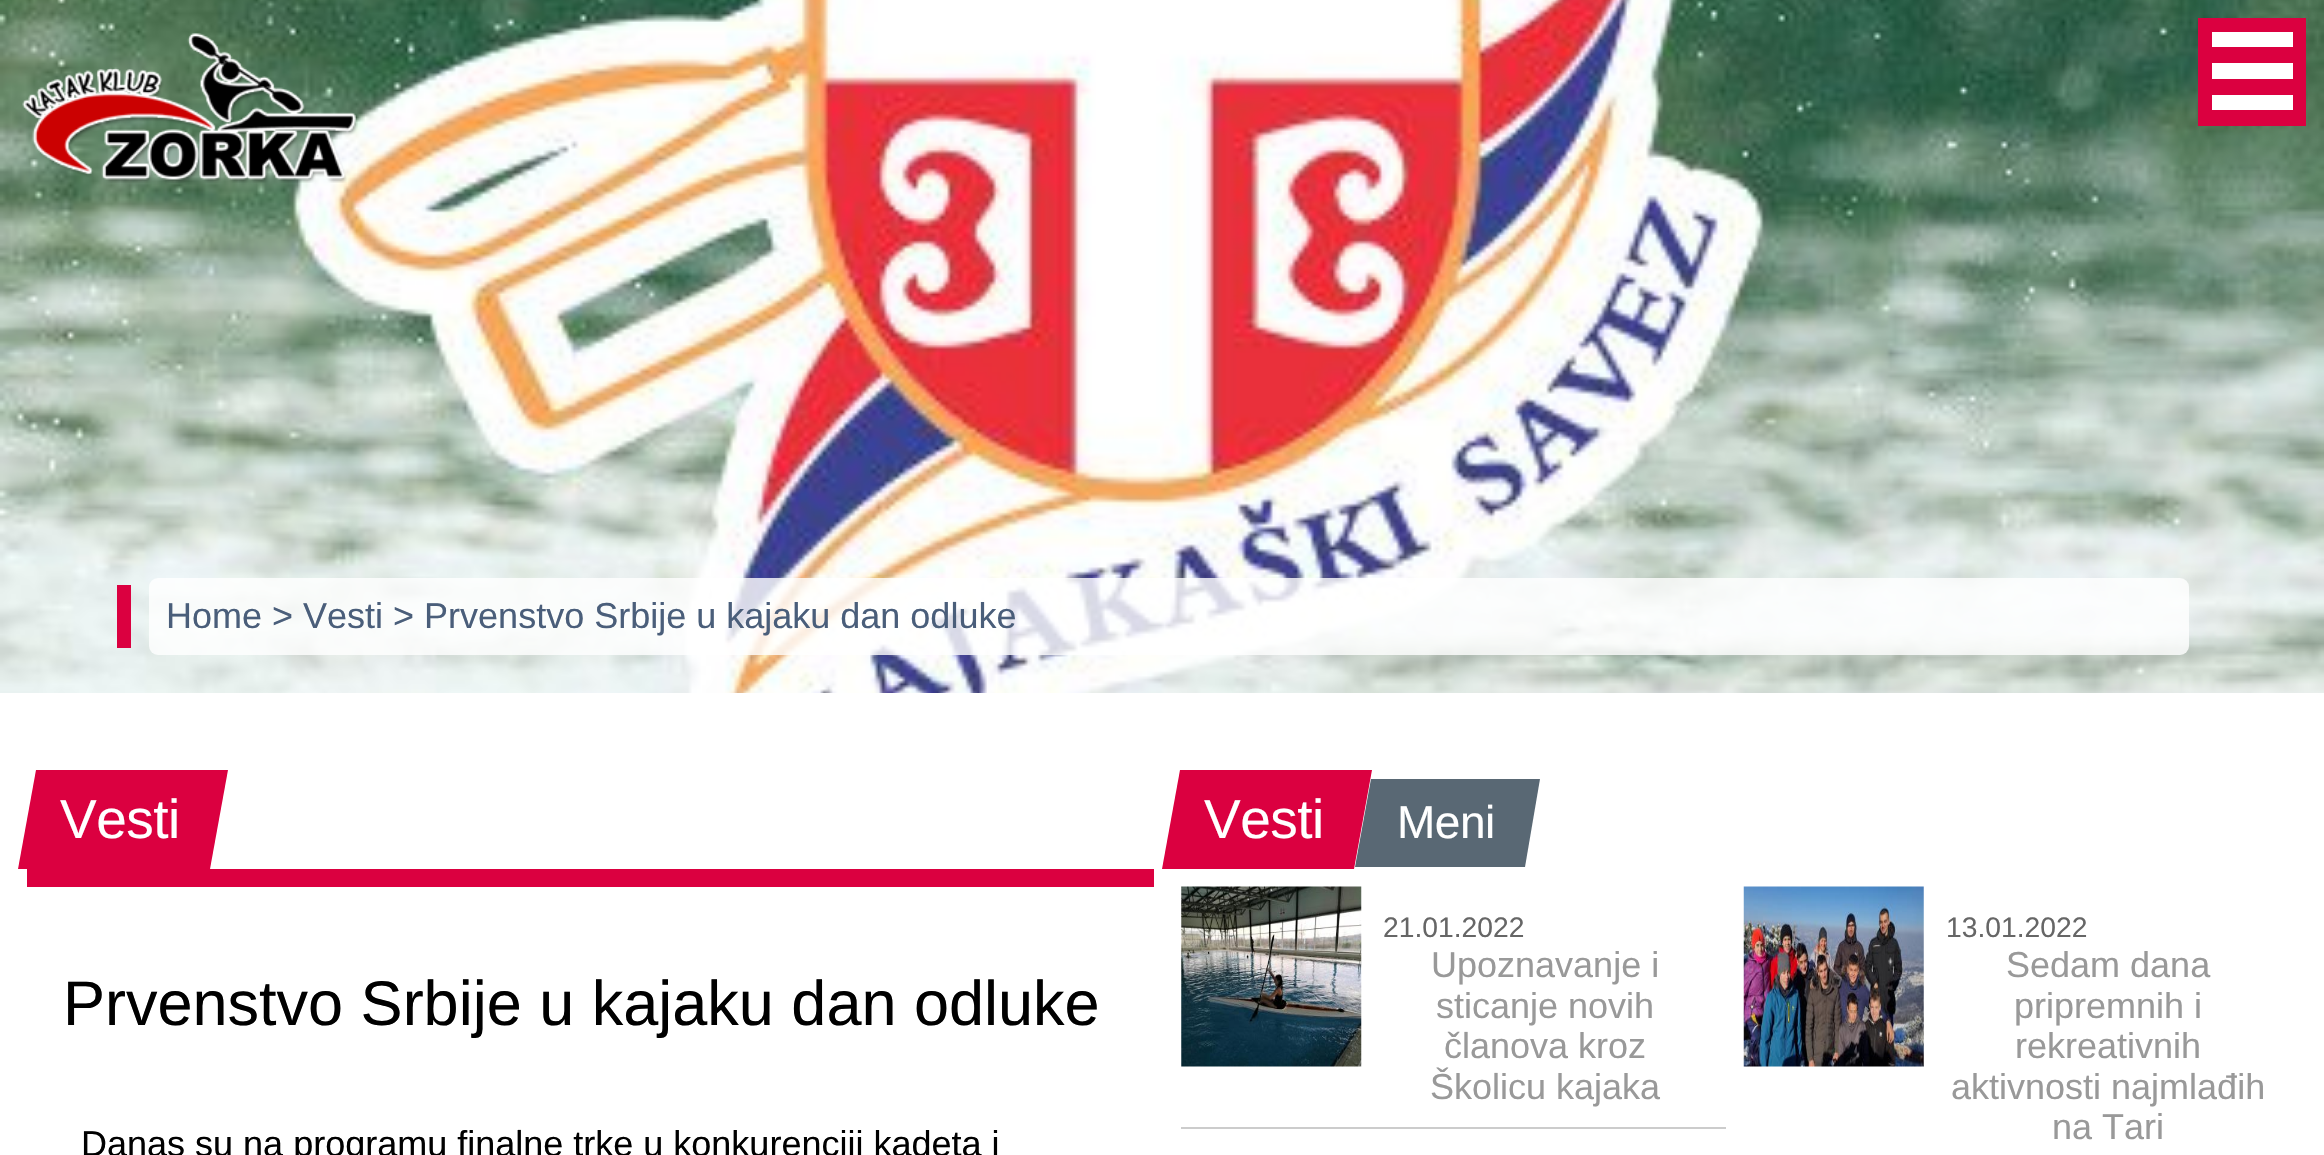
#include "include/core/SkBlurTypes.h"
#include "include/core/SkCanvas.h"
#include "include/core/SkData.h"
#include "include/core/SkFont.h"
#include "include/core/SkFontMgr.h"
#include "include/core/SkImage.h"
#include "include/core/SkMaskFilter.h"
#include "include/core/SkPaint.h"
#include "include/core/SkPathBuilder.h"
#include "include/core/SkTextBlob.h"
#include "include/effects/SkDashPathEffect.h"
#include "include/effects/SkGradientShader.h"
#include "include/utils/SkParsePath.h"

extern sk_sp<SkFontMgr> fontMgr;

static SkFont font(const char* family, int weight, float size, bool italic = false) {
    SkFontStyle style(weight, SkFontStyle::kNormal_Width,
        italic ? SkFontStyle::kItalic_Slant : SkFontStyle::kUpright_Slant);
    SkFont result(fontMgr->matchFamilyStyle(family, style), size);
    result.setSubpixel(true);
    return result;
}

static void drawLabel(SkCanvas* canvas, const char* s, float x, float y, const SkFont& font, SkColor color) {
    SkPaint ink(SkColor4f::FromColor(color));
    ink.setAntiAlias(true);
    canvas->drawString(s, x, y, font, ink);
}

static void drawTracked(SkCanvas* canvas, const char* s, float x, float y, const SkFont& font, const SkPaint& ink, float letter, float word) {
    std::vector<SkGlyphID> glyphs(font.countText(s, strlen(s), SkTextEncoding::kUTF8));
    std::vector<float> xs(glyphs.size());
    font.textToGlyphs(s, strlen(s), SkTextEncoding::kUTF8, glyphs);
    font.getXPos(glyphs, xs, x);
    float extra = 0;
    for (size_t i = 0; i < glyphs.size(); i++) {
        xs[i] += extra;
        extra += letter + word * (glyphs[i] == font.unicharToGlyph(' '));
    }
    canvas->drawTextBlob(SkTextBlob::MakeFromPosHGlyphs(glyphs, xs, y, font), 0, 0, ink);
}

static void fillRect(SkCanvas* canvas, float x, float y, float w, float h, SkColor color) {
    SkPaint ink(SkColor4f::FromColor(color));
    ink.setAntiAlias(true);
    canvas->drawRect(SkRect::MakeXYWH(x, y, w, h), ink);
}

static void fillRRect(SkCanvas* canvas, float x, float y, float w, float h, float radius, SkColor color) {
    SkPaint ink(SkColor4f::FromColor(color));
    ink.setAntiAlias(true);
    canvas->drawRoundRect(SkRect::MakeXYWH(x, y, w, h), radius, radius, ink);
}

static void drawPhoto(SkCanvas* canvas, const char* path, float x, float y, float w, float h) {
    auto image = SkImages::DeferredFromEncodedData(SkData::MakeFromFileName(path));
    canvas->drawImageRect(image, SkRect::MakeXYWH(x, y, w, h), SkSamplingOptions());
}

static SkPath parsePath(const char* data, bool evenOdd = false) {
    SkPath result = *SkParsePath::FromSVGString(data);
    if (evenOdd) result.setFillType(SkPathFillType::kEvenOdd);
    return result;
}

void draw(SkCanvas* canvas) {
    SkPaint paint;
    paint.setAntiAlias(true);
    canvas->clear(0xFFFFFFFF);
    drawPhoto(canvas, "assets/img1.png", 0, 0, 2324, 693);
    drawPhoto(canvas, "assets/img2.png", 22, 33, 336, 150);
    fillRect(canvas, 2198, 18, 108, 108, 0xFFDB0040);
    fillRect(canvas, 2212, 32, 81, 15, 0xFFFFFFFF);
    fillRect(canvas, 2212, 63, 81, 16, 0xFFFFFFFF);
    fillRect(canvas, 2212, 95, 81, 15, 0xFFFFFFFF);
    fillRect(canvas, 117, 585, 14, 63, 0xFFDB0040);
    fillRRect(canvas, 149, 578, 2040, 77, 9, 0xCCFFFFFF);
    SkFont font1 = font("Liberation Sans", 400, 36);
    drawLabel(canvas, "Home", 166, 628, font1, 0xFF4A5E7A);
    drawLabel(canvas, "> Vesti > Prvenstvo Srbije u kajaku dan odluke", 272, 628, font1, 0xFF4A5E7A);
    fillRect(canvas, 27, 869, 1127, 18, 0xFFDB0040);
    paint.setColor(0xFFDB0040);
    canvas->drawPath(parsePath("M36 770H228L210 869H18Z"), paint);
    SkFont font2 = font("Liberation Sans", 400, 55);
    paint.setColor(0xFFFFFFFF);
    drawTracked(canvas, "Vesti", 60, 838, font2, paint, -0.5f, 0);
    SkFont font3 = font("Liberation Sans", 400, 63);
    drawLabel(canvas, "Prvenstvo Srbije u kajaku dan odluke", 63, 1025, font3, 0xFF000000);
    drawLabel(canvas, "Danas su na programu finalne trke u konkurenciji kadeta i", 81, 1156, font1, 0xFF000000);
    paint.setColor(0xFFDB0040);
    canvas->drawPath(parsePath("M1180 770H1372L1354 869H1162Z"), paint);
    paint.setColor(0xFFFFFFFF);
    drawTracked(canvas, "Vesti", 1204, 838, font2, paint, -0.5f, 0);
    paint.setColor(0xFF596874);
    canvas->drawPath(parsePath("M1371 779H1540L1525 867H1355Z"), paint);
    SkFont font4 = font("Liberation Sans", 400, 46);
    paint.setColor(0xFFFFFFFF);
    drawTracked(canvas, "Meni", 1397, 838, font4, paint, -0.5f, 0);
    fillRect(canvas, 1181, 1127, 545, 2, 0xFFCCCCCC);
    drawPhoto(canvas, "assets/img3.png", 1181, 886, 181, 181);
    SkFont font5 = font("Liberation Sans", 400, 28.25f);
    drawLabel(canvas, "21.01.2022", 1383, 937, font5, 0xFF666666);
    drawLabel(canvas, "Upoznavanje i", 1431, 977, font1, 0xFF999999);
    drawLabel(canvas, "sticanje novih", 1436, 1018, font1, 0xFF999999);
    drawLabel(canvas, "članova kroz", 1444, 1058, font1, 0xFF999999);
    drawLabel(canvas, "Školicu kajaka", 1430, 1099, font1, 0xFF999999);
    drawPhoto(canvas, "assets/img4.png", 1743, 886, 181, 181);
    drawLabel(canvas, "13.01.2022", 1946, 937, font5, 0xFF666666);
    drawLabel(canvas, "Sedam dana", 2006, 977, font1, 0xFF999999);
    drawLabel(canvas, "pripremnih i", 2014, 1018, font1, 0xFF999999);
    drawLabel(canvas, "rekreativnih", 2015, 1058, font1, 0xFF999999);
    drawLabel(canvas, "aktivnosti najmlađih", 1951, 1099, font1, 0xFF999999);
    drawLabel(canvas, "na Tari", 2052, 1139, font1, 0xFF999999);
}
